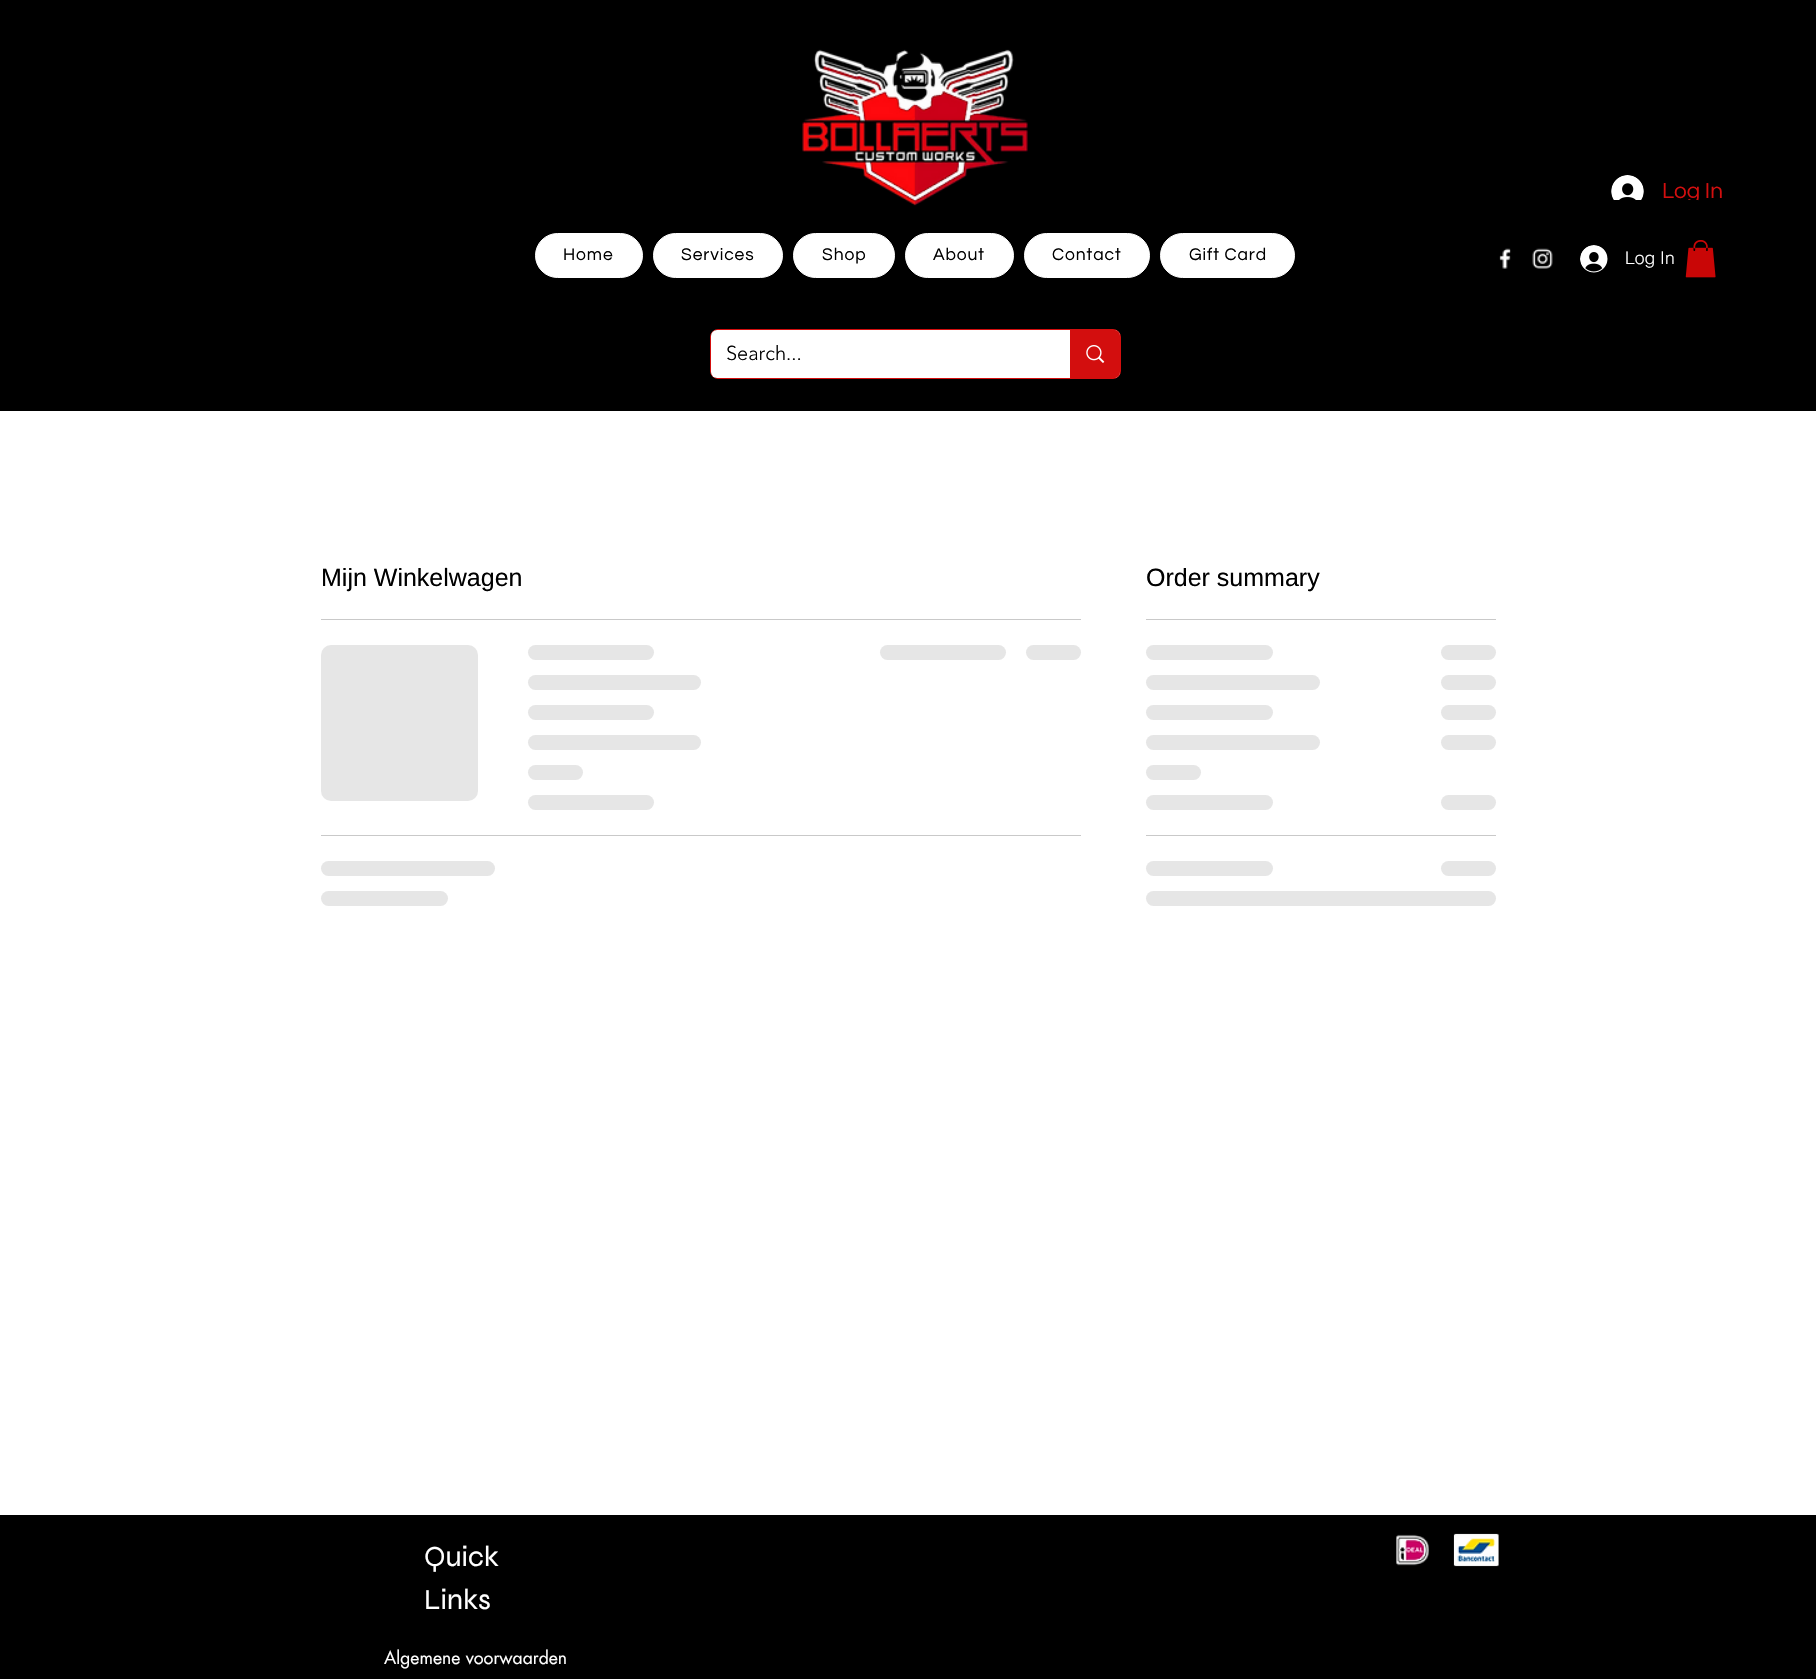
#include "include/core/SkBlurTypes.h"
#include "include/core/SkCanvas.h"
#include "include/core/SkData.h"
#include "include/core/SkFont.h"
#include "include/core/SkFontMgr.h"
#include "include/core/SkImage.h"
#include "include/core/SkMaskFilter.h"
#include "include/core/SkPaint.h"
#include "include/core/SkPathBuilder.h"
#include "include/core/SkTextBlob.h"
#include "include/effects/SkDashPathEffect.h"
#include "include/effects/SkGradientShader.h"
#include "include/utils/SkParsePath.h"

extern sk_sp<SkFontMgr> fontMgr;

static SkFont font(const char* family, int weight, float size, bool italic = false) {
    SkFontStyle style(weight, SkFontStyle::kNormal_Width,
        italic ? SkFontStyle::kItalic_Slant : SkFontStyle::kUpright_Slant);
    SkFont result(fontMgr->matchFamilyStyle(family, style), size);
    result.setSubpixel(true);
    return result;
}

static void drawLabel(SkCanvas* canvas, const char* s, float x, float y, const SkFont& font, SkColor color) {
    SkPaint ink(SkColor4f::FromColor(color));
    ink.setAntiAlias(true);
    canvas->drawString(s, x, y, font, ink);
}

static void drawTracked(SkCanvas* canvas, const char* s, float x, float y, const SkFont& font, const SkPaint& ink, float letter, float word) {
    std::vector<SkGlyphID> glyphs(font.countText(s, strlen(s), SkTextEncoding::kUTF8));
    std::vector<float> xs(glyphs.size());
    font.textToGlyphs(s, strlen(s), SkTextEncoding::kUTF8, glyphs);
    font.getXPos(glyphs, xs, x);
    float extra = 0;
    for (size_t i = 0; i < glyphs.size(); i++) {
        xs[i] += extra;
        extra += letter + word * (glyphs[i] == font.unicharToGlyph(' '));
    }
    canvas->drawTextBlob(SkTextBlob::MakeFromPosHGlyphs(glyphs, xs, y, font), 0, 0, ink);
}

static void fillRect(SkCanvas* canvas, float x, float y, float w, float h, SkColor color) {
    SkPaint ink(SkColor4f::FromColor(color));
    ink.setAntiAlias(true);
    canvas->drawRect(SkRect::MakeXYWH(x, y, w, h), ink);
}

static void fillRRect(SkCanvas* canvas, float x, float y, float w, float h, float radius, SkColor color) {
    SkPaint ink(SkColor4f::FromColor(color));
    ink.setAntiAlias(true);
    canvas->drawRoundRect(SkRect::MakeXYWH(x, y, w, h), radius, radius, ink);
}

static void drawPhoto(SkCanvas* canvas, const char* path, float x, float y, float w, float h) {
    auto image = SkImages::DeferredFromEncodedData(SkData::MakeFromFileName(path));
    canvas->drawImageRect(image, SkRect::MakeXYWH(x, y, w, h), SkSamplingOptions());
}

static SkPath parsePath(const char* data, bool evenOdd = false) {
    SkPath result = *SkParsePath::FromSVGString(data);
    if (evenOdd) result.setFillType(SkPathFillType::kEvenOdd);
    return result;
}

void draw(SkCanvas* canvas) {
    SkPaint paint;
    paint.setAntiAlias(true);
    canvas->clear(0xFFFFFFFF);
    fillRect(canvas, 0, 0, 1816, 411, 0xFF000000);
    drawPhoto(canvas, "assets/img1.png", 802, 49, 226, 157);
    drawPhoto(canvas, "assets/img2.png", 1611, 175, 33, 25);
    SkFont font1 = font("Questrial", 400, 22.5f);
    drawLabel(canvas, "Log In", 1662, 198, font1, 0xFFD30E0E);
    fillRect(canvas, 1688, 200, 10, 3, 0xFF000000);
    paint.setColor(0xFFFFFFFF);
    canvas->drawRoundRect(SkRect::MakeXYWH(535.5f, 233.5f, 107, 44), 22, 22, paint);
    paint.setStroke(true);
    paint.setStrokeWidth(1);
    canvas->drawRoundRect(SkRect::MakeXYWH(535.5f, 233.5f, 107, 44), 22, 22, paint);
    SkFont font2 = font("Questrial", 400, 17.5f);
    paint.setStroke(false);
    paint.setColor(0xFF000000);
    drawTracked(canvas, "Home", 563, 260, font2, paint, 0.9f, 0);
    paint.setColor(0xFFFFFFFF);
    canvas->drawRoundRect(SkRect::MakeXYWH(653.5f, 233.5f, 129, 44), 22, 22, paint);
    paint.setStroke(true);
    canvas->drawRoundRect(SkRect::MakeXYWH(653.5f, 233.5f, 129, 44), 22, 22, paint);
    paint.setStroke(false);
    paint.setColor(0xFF000000);
    drawTracked(canvas, "Services", 681, 260, font2, paint, 0.9f, 0);
    paint.setColor(0xFFFFFFFF);
    canvas->drawRoundRect(SkRect::MakeXYWH(793.5f, 233.5f, 101, 44), 22, 22, paint);
    paint.setStroke(true);
    canvas->drawRoundRect(SkRect::MakeXYWH(793.5f, 233.5f, 101, 44), 22, 22, paint);
    paint.setStroke(false);
    paint.setColor(0xFF000000);
    drawTracked(canvas, "Shop", 822, 260, font2, paint, 0.9f, 0);
    paint.setColor(0xFFFFFFFF);
    canvas->drawRoundRect(SkRect::MakeXYWH(905.5f, 233.5f, 108, 44), 22, 22, paint);
    paint.setStroke(true);
    canvas->drawRoundRect(SkRect::MakeXYWH(905.5f, 233.5f, 108, 44), 22, 22, paint);
    paint.setStroke(false);
    paint.setColor(0xFF000000);
    drawTracked(canvas, "About", 933, 260, font2, paint, 0.9f, 0);
    paint.setColor(0xFFFFFFFF);
    canvas->drawRoundRect(SkRect::MakeXYWH(1024.5f, 233.5f, 125, 44), 22, 22, paint);
    paint.setStroke(true);
    canvas->drawRoundRect(SkRect::MakeXYWH(1024.5f, 233.5f, 125, 44), 22, 22, paint);
    paint.setStroke(false);
    paint.setColor(0xFF000000);
    drawTracked(canvas, "Contact", 1052, 260, font2, paint, 0.9f, 0);
    paint.setColor(0xFFFFFFFF);
    canvas->drawRoundRect(SkRect::MakeXYWH(1160.5f, 233.5f, 134, 44), 22, 22, paint);
    paint.setStroke(true);
    canvas->drawRoundRect(SkRect::MakeXYWH(1160.5f, 233.5f, 134, 44), 22, 22, paint);
    paint.setStroke(false);
    paint.setColor(0xFF000000);
    drawTracked(canvas, "Gift Card", 1189, 260, font2, paint, 0.9f, 0);
    paint.setStroke(true);
    paint.setColor(0xFFD30E0E);
    canvas->drawRoundRect(SkRect::MakeXYWH(710.5f, 329.5f, 410, 49), 7.5f, 7.5f, paint);
    fillRRect(canvas, 711, 330, 409, 48, 6, 0xFFFFFFFF);
    SkFont font3 = font("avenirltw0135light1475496", 300, 20);
    drawLabel(canvas, "Search...", 726, 360, font3, 0xFF000000);
    paint.setStroke(false);
    canvas->drawPath(parsePath("M1070 330H1114C1117.5 330 1120 332.5 1120 336V372C1120 375.5 1117.5 378 1114 378H1070Z"), paint);
    drawPhoto(canvas, "assets/img3.png", 1086, 345, 19, 18);
    drawPhoto(canvas, "assets/img4.png", 1499, 248, 12, 21);
    drawPhoto(canvas, "assets/img5.png", 1532, 248, 21, 21);
    drawPhoto(canvas, "assets/img6.png", 1580, 245, 28, 28);
    SkFont font4 = font("helvetica", 300, 17.5f);
    drawLabel(canvas, "Log In", 1625, 264, font4, 0xFFFFFFFF);
    drawPhoto(canvas, "assets/img7.png", 1685, 240, 31, 38);
    fillRect(canvas, 321, 619, 760, 1, 0xFFC9C9C9);
    SkFont font5 = font("Liberation Sans", 400, 25);
    drawLabel(canvas, "Mijn Winkelwagen", 321, 586, font5, 0xFF000000);
    {
        const SkColor colors[] = {0xFFE6E6E6, 0xFFCCCCCC, 0xFFE6E6E6};
        const float stops[] = {0.25f, 0.37f, 0.63f};
        const SkPoint ends[] = {{321, 723}, {946, 723}};
        paint.setShader(SkGradientShader::MakeLinear(ends, colors, stops, 3, SkTileMode::kClamp));
        paint.setAlpha(255);
    }
    canvas->drawRoundRect(SkRect::MakeXYWH(321, 645, 157, 156), 10, 10, paint);
    {
        const SkColor colors[] = {0xFFE6E6E6, 0xFFCCCCCC, 0xFFE6E6E6};
        const float stops[] = {0.25f, 0.37f, 0.63f};
        const SkPoint ends[] = {{528, 653}, {1033, 653}};
        paint.setShader(SkGradientShader::MakeLinear(ends, colors, stops, 3, SkTileMode::kClamp));
        paint.setAlpha(255);
    }
    canvas->drawRoundRect(SkRect::MakeXYWH(528, 645, 126, 15), 7.5f, 7.5f, paint);
    {
        const SkColor colors[] = {0xFFE6E6E6, 0xFFCCCCCC, 0xFFE6E6E6};
        const float stops[] = {0.25f, 0.37f, 0.63f};
        const SkPoint ends[] = {{528, 683}, {1223, 683}};
        paint.setShader(SkGradientShader::MakeLinear(ends, colors, stops, 3, SkTileMode::kClamp));
        paint.setAlpha(255);
    }
    canvas->drawRoundRect(SkRect::MakeXYWH(528, 675, 173, 15), 7.5f, 7.5f, paint);
    {
        const SkColor colors[] = {0xFFE6E6E6, 0xFFCCCCCC, 0xFFE6E6E6};
        const float stops[] = {0.25f, 0.37f, 0.63f};
        const SkPoint ends[] = {{528, 713}, {1033, 713}};
        paint.setShader(SkGradientShader::MakeLinear(ends, colors, stops, 3, SkTileMode::kClamp));
        paint.setAlpha(255);
    }
    canvas->drawRoundRect(SkRect::MakeXYWH(528, 705, 126, 15), 7.5f, 7.5f, paint);
    {
        const SkColor colors[] = {0xFFE6E6E6, 0xFFCCCCCC, 0xFFE6E6E6};
        const float stops[] = {0.25f, 0.37f, 0.63f};
        const SkPoint ends[] = {{528, 743}, {1223, 743}};
        paint.setShader(SkGradientShader::MakeLinear(ends, colors, stops, 3, SkTileMode::kClamp));
        paint.setAlpha(255);
    }
    canvas->drawRoundRect(SkRect::MakeXYWH(528, 735, 173, 15), 7.5f, 7.5f, paint);
    {
        const SkColor colors[] = {0xFFE6E6E6, 0xFFCCCCCC, 0xFFE6E6E6};
        const float stops[] = {0.25f, 0.37f, 0.63f};
        const SkPoint ends[] = {{528, 773}, {748, 773}};
        paint.setShader(SkGradientShader::MakeLinear(ends, colors, stops, 3, SkTileMode::kClamp));
        paint.setAlpha(255);
    }
    canvas->drawRoundRect(SkRect::MakeXYWH(528, 765, 55, 15), 7.5f, 7.5f, paint);
    {
        const SkColor colors[] = {0xFFE6E6E6, 0xFFCCCCCC, 0xFFE6E6E6};
        const float stops[] = {0.25f, 0.37f, 0.63f};
        const SkPoint ends[] = {{528, 803}, {1033, 803}};
        paint.setShader(SkGradientShader::MakeLinear(ends, colors, stops, 3, SkTileMode::kClamp));
        paint.setAlpha(255);
    }
    canvas->drawRoundRect(SkRect::MakeXYWH(528, 795, 126, 15), 7.5f, 7.5f, paint);
    {
        const SkColor colors[] = {0xFFE6E6E6, 0xFFCCCCCC, 0xFFE6E6E6};
        const float stops[] = {0.25f, 0.37f, 0.63f};
        const SkPoint ends[] = {{880, 653}, {1385, 653}};
        paint.setShader(SkGradientShader::MakeLinear(ends, colors, stops, 3, SkTileMode::kClamp));
        paint.setAlpha(255);
    }
    canvas->drawRoundRect(SkRect::MakeXYWH(880, 645, 126, 15), 7.5f, 7.5f, paint);
    {
        const SkColor colors[] = {0xFFE6E6E6, 0xFFCCCCCC, 0xFFE6E6E6};
        const float stops[] = {0.25f, 0.37f, 0.63f};
        const SkPoint ends[] = {{1026, 653}, {1246, 653}};
        paint.setShader(SkGradientShader::MakeLinear(ends, colors, stops, 3, SkTileMode::kClamp));
        paint.setAlpha(255);
    }
    canvas->drawRoundRect(SkRect::MakeXYWH(1026, 645, 55, 15), 7.5f, 7.5f, paint);
    fillRect(canvas, 321, 835, 760, 1, 0xFFC9C9C9);
    {
        const SkColor colors[] = {0xFFE6E6E6, 0xFFCCCCCC, 0xFFE6E6E6};
        const float stops[] = {0.25f, 0.37f, 0.63f};
        const SkPoint ends[] = {{321, 869}, {1016, 869}};
        paint.setShader(SkGradientShader::MakeLinear(ends, colors, stops, 3, SkTileMode::kClamp));
        paint.setAlpha(255);
    }
    canvas->drawRoundRect(SkRect::MakeXYWH(321, 861, 174, 15), 7.5f, 7.5f, paint);
    {
        const SkColor colors[] = {0xFFE6E6E6, 0xFFCCCCCC, 0xFFE6E6E6};
        const float stops[] = {0.25f, 0.37f, 0.63f};
        const SkPoint ends[] = {{321, 899}, {826, 899}};
        paint.setShader(SkGradientShader::MakeLinear(ends, colors, stops, 3, SkTileMode::kClamp));
        paint.setAlpha(255);
    }
    canvas->drawRoundRect(SkRect::MakeXYWH(321, 891, 127, 15), 7.5f, 7.5f, paint);
    fillRect(canvas, 1146, 619, 350, 1, 0xFFC9C9C9);
    drawLabel(canvas, "Order summary", 1146, 586, font5, 0xFF000000);
    {
        const SkColor colors[] = {0xFFE6E6E6, 0xFFCCCCCC, 0xFFE6E6E6};
        const float stops[] = {0.25f, 0.37f, 0.63f};
        const SkPoint ends[] = {{1146, 653}, {1651, 653}};
        paint.setShader(SkGradientShader::MakeLinear(ends, colors, stops, 3, SkTileMode::kClamp));
        paint.setAlpha(255);
    }
    canvas->drawRoundRect(SkRect::MakeXYWH(1146, 645, 127, 15), 7.5f, 7.5f, paint);
    {
        const SkColor colors[] = {0xFFE6E6E6, 0xFFCCCCCC, 0xFFE6E6E6};
        const float stops[] = {0.25f, 0.37f, 0.63f};
        const SkPoint ends[] = {{1441, 653}, {1661, 653}};
        paint.setShader(SkGradientShader::MakeLinear(ends, colors, stops, 3, SkTileMode::kClamp));
        paint.setAlpha(255);
    }
    canvas->drawRoundRect(SkRect::MakeXYWH(1441, 645, 55, 15), 7.5f, 7.5f, paint);
    {
        const SkColor colors[] = {0xFFE6E6E6, 0xFFCCCCCC, 0xFFE6E6E6};
        const float stops[] = {0.25f, 0.37f, 0.63f};
        const SkPoint ends[] = {{1146, 683}, {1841, 683}};
        paint.setShader(SkGradientShader::MakeLinear(ends, colors, stops, 3, SkTileMode::kClamp));
        paint.setAlpha(255);
    }
    canvas->drawRoundRect(SkRect::MakeXYWH(1146, 675, 174, 15), 7.5f, 7.5f, paint);
    {
        const SkColor colors[] = {0xFFE6E6E6, 0xFFCCCCCC, 0xFFE6E6E6};
        const float stops[] = {0.25f, 0.37f, 0.63f};
        const SkPoint ends[] = {{1441, 683}, {1661, 683}};
        paint.setShader(SkGradientShader::MakeLinear(ends, colors, stops, 3, SkTileMode::kClamp));
        paint.setAlpha(255);
    }
    canvas->drawRoundRect(SkRect::MakeXYWH(1441, 675, 55, 15), 7.5f, 7.5f, paint);
    {
        const SkColor colors[] = {0xFFE6E6E6, 0xFFCCCCCC, 0xFFE6E6E6};
        const float stops[] = {0.25f, 0.37f, 0.63f};
        const SkPoint ends[] = {{1146, 713}, {1651, 713}};
        paint.setShader(SkGradientShader::MakeLinear(ends, colors, stops, 3, SkTileMode::kClamp));
        paint.setAlpha(255);
    }
    canvas->drawRoundRect(SkRect::MakeXYWH(1146, 705, 127, 15), 7.5f, 7.5f, paint);
    {
        const SkColor colors[] = {0xFFE6E6E6, 0xFFCCCCCC, 0xFFE6E6E6};
        const float stops[] = {0.25f, 0.37f, 0.63f};
        const SkPoint ends[] = {{1441, 713}, {1661, 713}};
        paint.setShader(SkGradientShader::MakeLinear(ends, colors, stops, 3, SkTileMode::kClamp));
        paint.setAlpha(255);
    }
    canvas->drawRoundRect(SkRect::MakeXYWH(1441, 705, 55, 15), 7.5f, 7.5f, paint);
    {
        const SkColor colors[] = {0xFFE6E6E6, 0xFFCCCCCC, 0xFFE6E6E6};
        const float stops[] = {0.25f, 0.37f, 0.63f};
        const SkPoint ends[] = {{1146, 743}, {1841, 743}};
        paint.setShader(SkGradientShader::MakeLinear(ends, colors, stops, 3, SkTileMode::kClamp));
        paint.setAlpha(255);
    }
    canvas->drawRoundRect(SkRect::MakeXYWH(1146, 735, 174, 15), 7.5f, 7.5f, paint);
    {
        const SkColor colors[] = {0xFFE6E6E6, 0xFFCCCCCC, 0xFFE6E6E6};
        const float stops[] = {0.25f, 0.37f, 0.63f};
        const SkPoint ends[] = {{1441, 743}, {1661, 743}};
        paint.setShader(SkGradientShader::MakeLinear(ends, colors, stops, 3, SkTileMode::kClamp));
        paint.setAlpha(255);
    }
    canvas->drawRoundRect(SkRect::MakeXYWH(1441, 735, 55, 15), 7.5f, 7.5f, paint);
    {
        const SkColor colors[] = {0xFFE6E6E6, 0xFFCCCCCC, 0xFFE6E6E6};
        const float stops[] = {0.25f, 0.37f, 0.63f};
        const SkPoint ends[] = {{1146, 773}, {1366, 773}};
        paint.setShader(SkGradientShader::MakeLinear(ends, colors, stops, 3, SkTileMode::kClamp));
        paint.setAlpha(255);
    }
    canvas->drawRoundRect(SkRect::MakeXYWH(1146, 765, 55, 15), 7.5f, 7.5f, paint);
    {
        const SkColor colors[] = {0xFFE6E6E6, 0xFFCCCCCC, 0xFFE6E6E6};
        const float stops[] = {0.25f, 0.37f, 0.63f};
        const SkPoint ends[] = {{1146, 803}, {1651, 803}};
        paint.setShader(SkGradientShader::MakeLinear(ends, colors, stops, 3, SkTileMode::kClamp));
        paint.setAlpha(255);
    }
    canvas->drawRoundRect(SkRect::MakeXYWH(1146, 795, 127, 15), 7.5f, 7.5f, paint);
    {
        const SkColor colors[] = {0xFFE6E6E6, 0xFFCCCCCC, 0xFFE6E6E6};
        const float stops[] = {0.25f, 0.37f, 0.63f};
        const SkPoint ends[] = {{1441, 803}, {1661, 803}};
        paint.setShader(SkGradientShader::MakeLinear(ends, colors, stops, 3, SkTileMode::kClamp));
        paint.setAlpha(255);
    }
    canvas->drawRoundRect(SkRect::MakeXYWH(1441, 795, 55, 15), 7.5f, 7.5f, paint);
    fillRect(canvas, 1146, 835, 350, 1, 0xFFC9C9C9);
    {
        const SkColor colors[] = {0xFFE6E6E6, 0xFFCCCCCC, 0xFFE6E6E6};
        const float stops[] = {0.25f, 0.37f, 0.63f};
        const SkPoint ends[] = {{1146, 869}, {1651, 869}};
        paint.setShader(SkGradientShader::MakeLinear(ends, colors, stops, 3, SkTileMode::kClamp));
        paint.setAlpha(255);
    }
    canvas->drawRoundRect(SkRect::MakeXYWH(1146, 861, 127, 15), 7.5f, 7.5f, paint);
    {
        const SkColor colors[] = {0xFFE6E6E6, 0xFFCCCCCC, 0xFFE6E6E6};
        const float stops[] = {0.25f, 0.37f, 0.63f};
        const SkPoint ends[] = {{1441, 869}, {1661, 869}};
        paint.setShader(SkGradientShader::MakeLinear(ends, colors, stops, 3, SkTileMode::kClamp));
        paint.setAlpha(255);
    }
    canvas->drawRoundRect(SkRect::MakeXYWH(1441, 861, 55, 15), 7.5f, 7.5f, paint);
    {
        const SkColor colors[] = {0xFFE6E6E6, 0xFFCCCCCC, 0xFFE6E6E6};
        const float stops[] = {0.25f, 0.37f, 0.63f};
        const SkPoint ends[] = {{1146, 899}, {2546, 899}};
        paint.setShader(SkGradientShader::MakeLinear(ends, colors, stops, 3, SkTileMode::kClamp));
        paint.setAlpha(255);
    }
    canvas->drawRoundRect(SkRect::MakeXYWH(1146, 891, 350, 15), 7.5f, 7.5f, paint);
    fillRect(canvas, 0, 1515, 1816, 164, 0xFF000000);
    SkFont font6 = font("Syne", 400, 29);
    drawLabel(canvas, "Quick", 424, 1566, font6, 0xFFFFFFFF);
    drawLabel(canvas, "Links", 424, 1609, font6, 0xFFFFFFFF);
    drawPhoto(canvas, "assets/img8.png", 1396, 1534, 33, 32);
    drawPhoto(canvas, "assets/img9.png", 1453, 1533, 46, 34);
    SkFont font7 = font("futura", 400, 17.5f);
    drawLabel(canvas, "Algemene voorwaarden", 384, 1664, font7, 0xFFFFFFFF);
}
